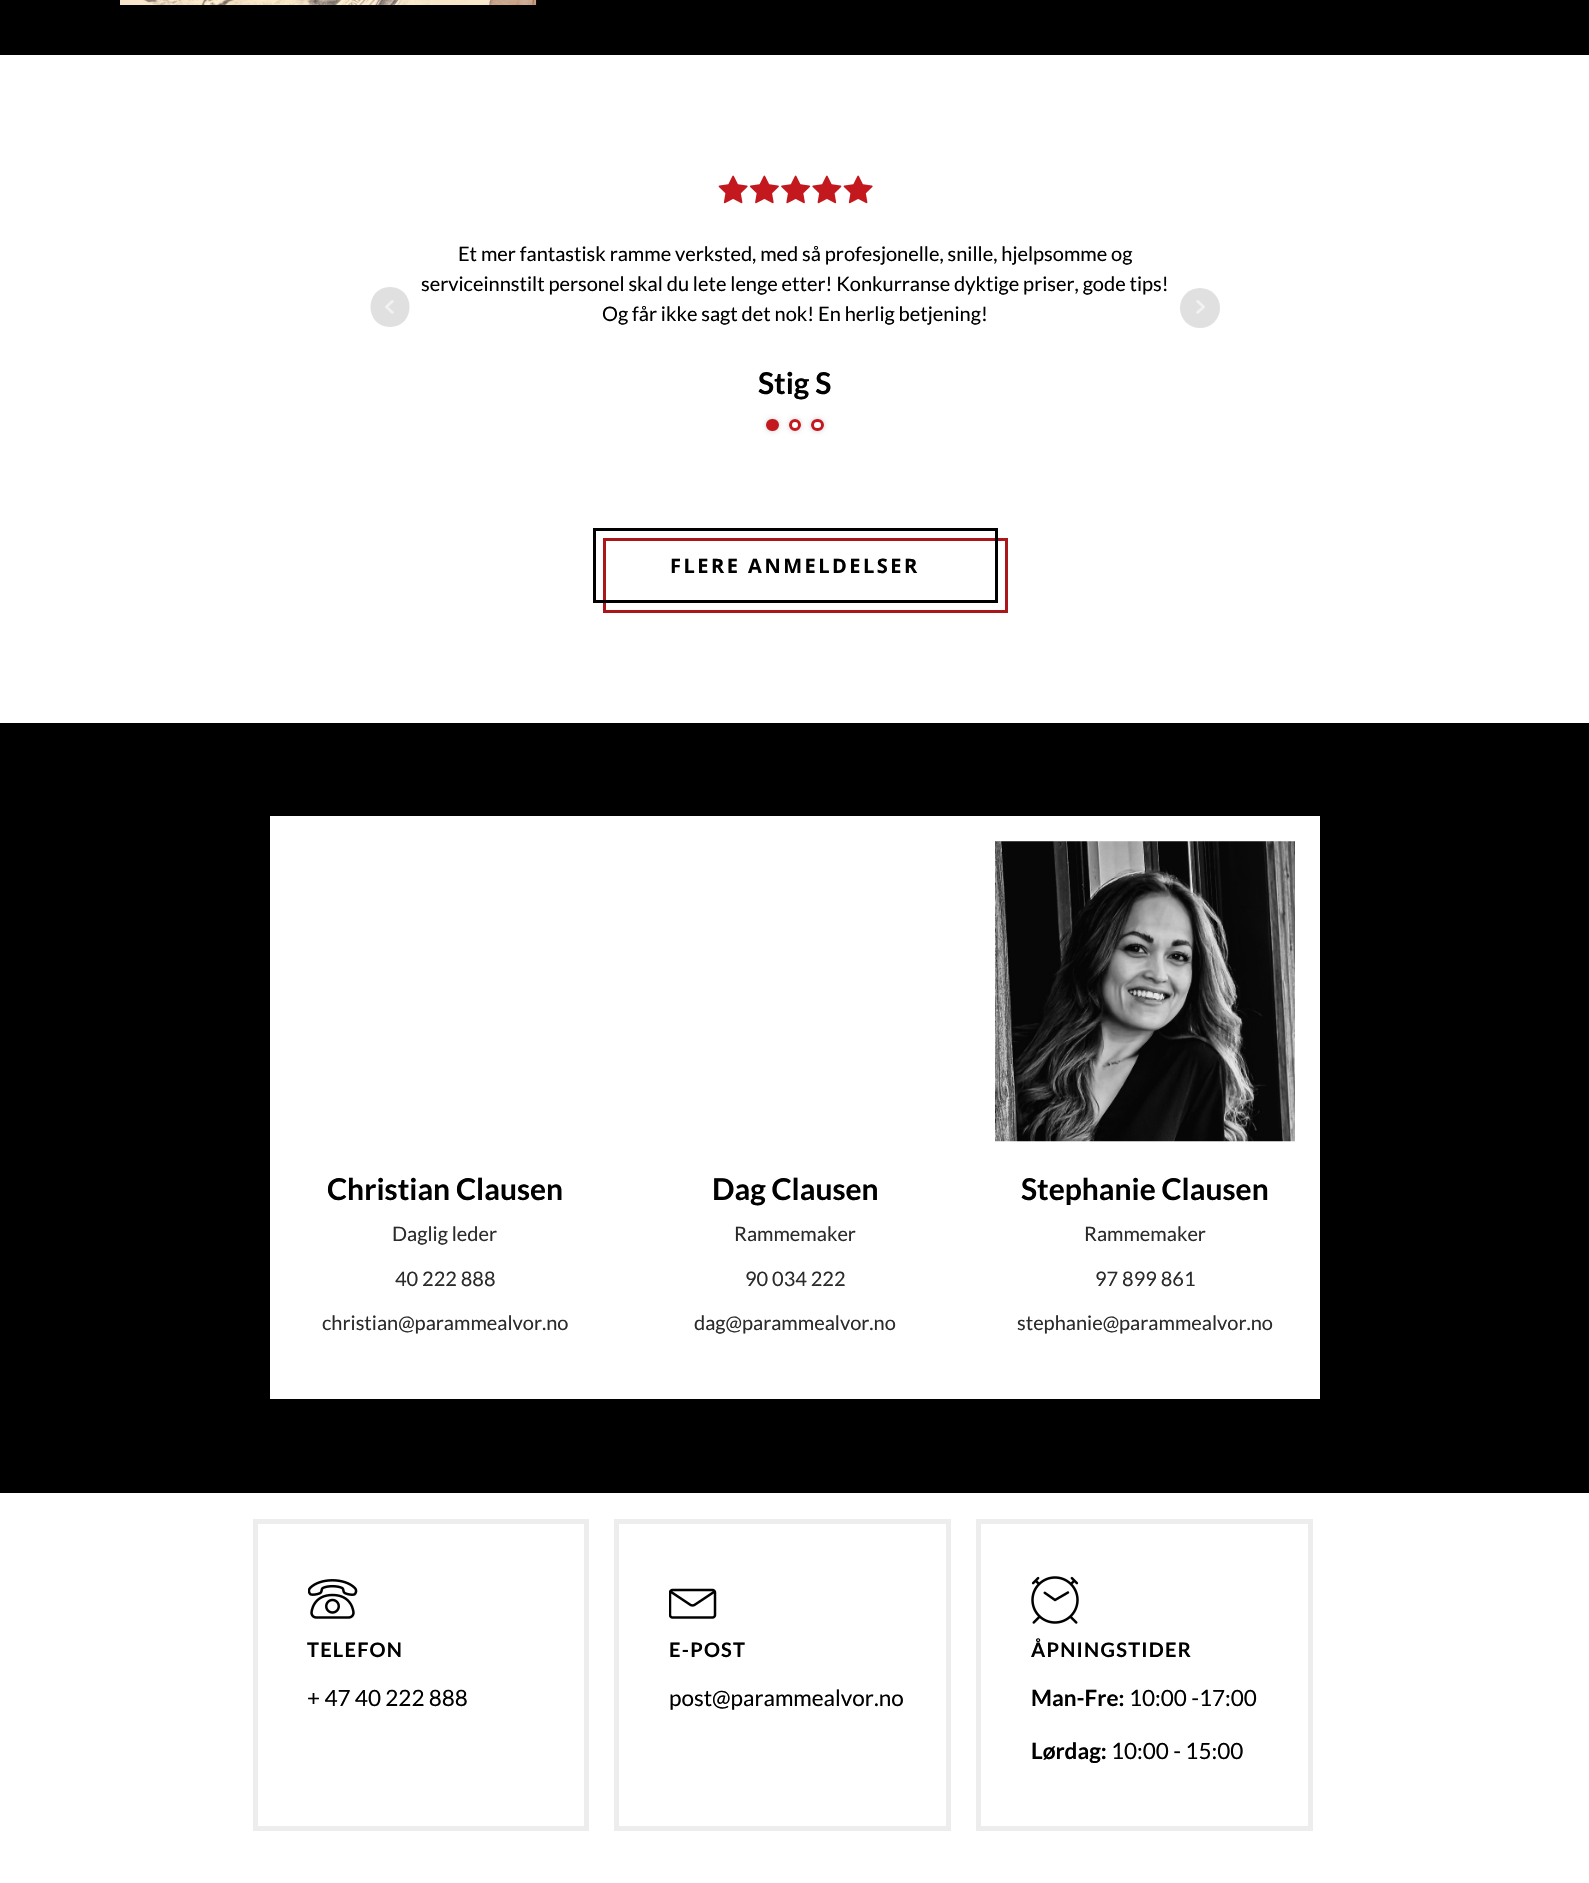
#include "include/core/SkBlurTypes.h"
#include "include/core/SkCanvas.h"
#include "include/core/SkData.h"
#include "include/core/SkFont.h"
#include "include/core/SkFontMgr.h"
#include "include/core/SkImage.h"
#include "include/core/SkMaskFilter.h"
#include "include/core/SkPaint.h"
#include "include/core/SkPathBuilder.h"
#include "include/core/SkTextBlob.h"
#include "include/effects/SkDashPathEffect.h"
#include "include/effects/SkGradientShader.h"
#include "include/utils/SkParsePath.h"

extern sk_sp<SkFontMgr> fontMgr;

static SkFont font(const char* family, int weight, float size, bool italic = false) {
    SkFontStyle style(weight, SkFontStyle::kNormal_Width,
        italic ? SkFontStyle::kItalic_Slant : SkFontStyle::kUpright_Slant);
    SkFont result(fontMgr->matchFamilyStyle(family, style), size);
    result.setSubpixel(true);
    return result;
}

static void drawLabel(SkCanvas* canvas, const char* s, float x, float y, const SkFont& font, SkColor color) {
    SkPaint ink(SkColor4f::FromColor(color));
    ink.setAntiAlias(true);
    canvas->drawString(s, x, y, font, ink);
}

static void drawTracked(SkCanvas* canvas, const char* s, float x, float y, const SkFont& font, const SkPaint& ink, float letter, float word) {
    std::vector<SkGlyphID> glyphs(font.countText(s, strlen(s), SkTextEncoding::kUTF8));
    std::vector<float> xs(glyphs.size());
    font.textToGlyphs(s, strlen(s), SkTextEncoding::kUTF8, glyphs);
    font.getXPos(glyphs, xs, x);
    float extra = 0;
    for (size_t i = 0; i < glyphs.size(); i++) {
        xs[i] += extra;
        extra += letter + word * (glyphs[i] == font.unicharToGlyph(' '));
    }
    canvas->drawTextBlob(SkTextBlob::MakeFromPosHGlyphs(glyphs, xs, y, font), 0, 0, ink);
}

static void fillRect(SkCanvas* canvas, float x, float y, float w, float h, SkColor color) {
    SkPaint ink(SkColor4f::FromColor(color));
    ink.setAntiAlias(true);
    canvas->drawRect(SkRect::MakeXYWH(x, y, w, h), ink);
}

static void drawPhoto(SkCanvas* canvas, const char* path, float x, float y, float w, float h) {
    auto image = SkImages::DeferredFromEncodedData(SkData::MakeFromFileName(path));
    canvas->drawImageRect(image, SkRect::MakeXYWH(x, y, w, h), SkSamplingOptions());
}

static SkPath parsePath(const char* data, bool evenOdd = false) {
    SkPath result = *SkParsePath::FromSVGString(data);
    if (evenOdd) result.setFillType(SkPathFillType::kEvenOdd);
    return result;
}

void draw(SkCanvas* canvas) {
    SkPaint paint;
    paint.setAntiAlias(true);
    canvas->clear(0xFFFFFFFF);
    fillRect(canvas, 0, 0, 1589, 55, 0xFF000000);
    drawPhoto(canvas, "assets/img1.png", 120, 0, 417, 5);
    paint.setColor(0xFFE0E0E0);
    canvas->drawPath(parsePath("M390 327C364 327 364 287 390 287C416 287 416 327 390 327Z"), paint);
    drawPhoto(canvas, "assets/img2.png", 385, 300, 9, 14);
    drawPhoto(canvas, "assets/img3.png", 718, 175, 30, 29);
    drawPhoto(canvas, "assets/img4.png", 749, 175, 30, 29);
    drawPhoto(canvas, "assets/img5.png", 781, 175, 30, 29);
    drawPhoto(canvas, "assets/img6.png", 812, 175, 30, 29);
    drawPhoto(canvas, "assets/img3.png", 843, 175, 30, 29);
    SkFont font1 = font("Lato", 400, 20);
    drawLabel(canvas, "Et mer fantastisk ramme verksted, med så profesjonelle, snille, hjelpsomme og", 458, 261, font1, 0xFF000000);
    drawLabel(canvas, "serviceinnstilt personel skal du lete lenge etter! Konkurranse dyktige priser, gode tips!", 421, 291, font1, 0xFF000000);
    drawLabel(canvas, "Og får ikke sagt det nok! En herlig betjening!", 602, 321, font1, 0xFF000000);
    SkFont font2 = font("Lato", 700, 30);
    drawLabel(canvas, "Stig S", 758, 394, font2, 0xFF000000);
    canvas->drawCircle(1200, 308, 20, paint);
    drawPhoto(canvas, "assets/img7.png", 1196, 300, 9, 14);
    paint.setColor(0x33000000);
    paint.setMaskFilter(SkMaskFilter::MakeBlur(kNormal_SkBlurStyle, 2.5f));
    canvas->drawRoundRect(SkRect::MakeXYWH(766, 419, 13, 12), 6, 6, paint);
    paint.setMaskFilter(nullptr);
    paint.setColor(0xFFC2181E);
    canvas->drawRoundRect(SkRect::MakeXYWH(767.5f, 420.5f, 10, 9), 4.5f, 4.5f, paint);
    paint.setStroke(true);
    paint.setStrokeWidth(3);
    canvas->drawRoundRect(SkRect::MakeXYWH(767.5f, 420.5f, 10, 9), 4.5f, 4.5f, paint);
    canvas->save();
    canvas->clipPath(parsePath("M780 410H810V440H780ZM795 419C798.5 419 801 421.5 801 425C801 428.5 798.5 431 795 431C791.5 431 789 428.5 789 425C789 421.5 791.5 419 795 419Z", true), true);
    paint.setStroke(false);
    paint.setColor(0x33000000);
    paint.setMaskFilter(SkMaskFilter::MakeBlur(kNormal_SkBlurStyle, 2.5f));
    canvas->drawRoundRect(SkRect::MakeXYWH(789, 419, 12, 12), 6, 6, paint);
    paint.setMaskFilter(nullptr);
    canvas->restore();
    paint.setStroke(true);
    paint.setColor(0xFFC2181E);
    canvas->drawCircle(795, 425, 4.5f, paint);
    canvas->save();
    canvas->clipPath(parsePath("M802 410H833V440H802ZM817 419H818C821.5 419 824 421.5 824 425C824 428.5 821.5 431 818 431H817C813.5 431 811 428.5 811 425C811 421.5 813.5 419 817 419Z", true), true);
    paint.setStroke(false);
    paint.setColor(0x33000000);
    paint.setMaskFilter(SkMaskFilter::MakeBlur(kNormal_SkBlurStyle, 2.5f));
    canvas->drawRoundRect(SkRect::MakeXYWH(811, 419, 13, 12), 6, 6, paint);
    paint.setMaskFilter(nullptr);
    canvas->restore();
    paint.setStroke(true);
    paint.setColor(0xFFC2181E);
    canvas->drawRoundRect(SkRect::MakeXYWH(812.5f, 420.5f, 10, 9), 4.5f, 4.5f, paint);
    paint.setColor(0xFFA9171B);
    canvas->drawRect(SkRect::MakeXYWH(604.5f, 539.5f, 402, 72), paint);
    paint.setColor(0xFF000000);
    canvas->drawRect(SkRect::MakeXYWH(594.5f, 529.5f, 402, 72), paint);
    SkFont font3 = font("Open Sans", 700, 20);
    paint.setStroke(false);
    drawTracked(canvas, "FLERE ANMELDELSER", 670, 573, font3, paint, 2.5f, 0);
    fillRect(canvas, 0, 723, 1589, 770, 0xFF000000);
    fillRect(canvas, 270, 816, 1050, 583, 0xFFFFFFFF);
    drawLabel(canvas, "Christian Clausen", 327, 1200, font2, 0xFF000000);
    drawLabel(canvas, "Daglig leder", 392, 1241, font1, 0xFF2B2B2B);
    drawLabel(canvas, "40 222 888", 395, 1286, font1, 0xFF2B2B2B);
    drawLabel(canvas, "christian@parammealvor.no", 322, 1330, font1, 0xFF2B2B2B);
    drawLabel(canvas, "Dag Clausen", 712, 1200, font2, 0xFF000000);
    drawLabel(canvas, "Rammemaker", 734, 1241, font1, 0xFF2B2B2B);
    drawLabel(canvas, "90 034 222", 745, 1286, font1, 0xFF2B2B2B);
    drawLabel(canvas, "dag@parammealvor.no", 694, 1330, font1, 0xFF2B2B2B);
    drawPhoto(canvas, "assets/img8.png", 995, 841, 300, 301);
    drawLabel(canvas, "Stephanie Clausen", 1021, 1200, font2, 0xFF000000);
    drawLabel(canvas, "Rammemaker", 1084, 1241, font1, 0xFF2B2B2B);
    drawLabel(canvas, "97 899 861", 1095, 1286, font1, 0xFF2B2B2B);
    drawLabel(canvas, "stephanie@parammealvor.no", 1017, 1330, font1, 0xFF2B2B2B);
    paint.setStroke(true);
    paint.setStrokeWidth(5);
    paint.setColor(0xFFEDEDED);
    canvas->drawRect(SkRect::MakeXYWH(255.5f, 1521.5f, 331, 307), paint);
    drawPhoto(canvas, "assets/img9.png", 308, 1579, 50, 40);
    SkFont font4 = font("Lato", 700, 20);
    paint.setStroke(false);
    paint.setColor(0xFF000000);
    drawTracked(canvas, "TELEFON", 307, 1657, font4, paint, 1.25f, 0);
    SkFont font5 = font("Lato", 400, 22.5f);
    drawLabel(canvas, "+ 47 40 222 888", 307, 1706, font5, 0xFF000000);
    paint.setStroke(true);
    paint.setColor(0xFFEDEDED);
    canvas->drawRect(SkRect::MakeXYWH(616.5f, 1521.5f, 332, 307), paint);
    drawPhoto(canvas, "assets/img10.png", 669, 1588, 48, 31);
    paint.setStroke(false);
    paint.setColor(0xFF000000);
    drawTracked(canvas, "E-POST", 669, 1657, font4, paint, 1.25f, 0);
    drawLabel(canvas, "post@parammealvor.no", 669, 1706, font5, 0xFF000000);
    paint.setStroke(true);
    paint.setColor(0xFFEDEDED);
    canvas->drawRect(SkRect::MakeXYWH(978.5f, 1521.5f, 332, 307), paint);
    drawPhoto(canvas, "assets/img11.png", 1031, 1576, 48, 48);
    paint.setStroke(false);
    paint.setColor(0xFF000000);
    drawTracked(canvas, "ÅPNINGSTIDER", 1031, 1657, font4, paint, 1.25f, 0);
    SkFont font6 = font("Lato", 700, 22.5f);
    drawLabel(canvas, "Man-Fre:", 1031, 1706, font6, 0xFF000000);
    drawLabel(canvas, "10:00 -17:00", 1129, 1706, font5, 0xFF000000);
    drawLabel(canvas, "Lørdag:", 1031, 1759, font6, 0xFF000000);
    drawLabel(canvas, "10:00 - 15:00", 1111, 1759, font5, 0xFF000000);
}
